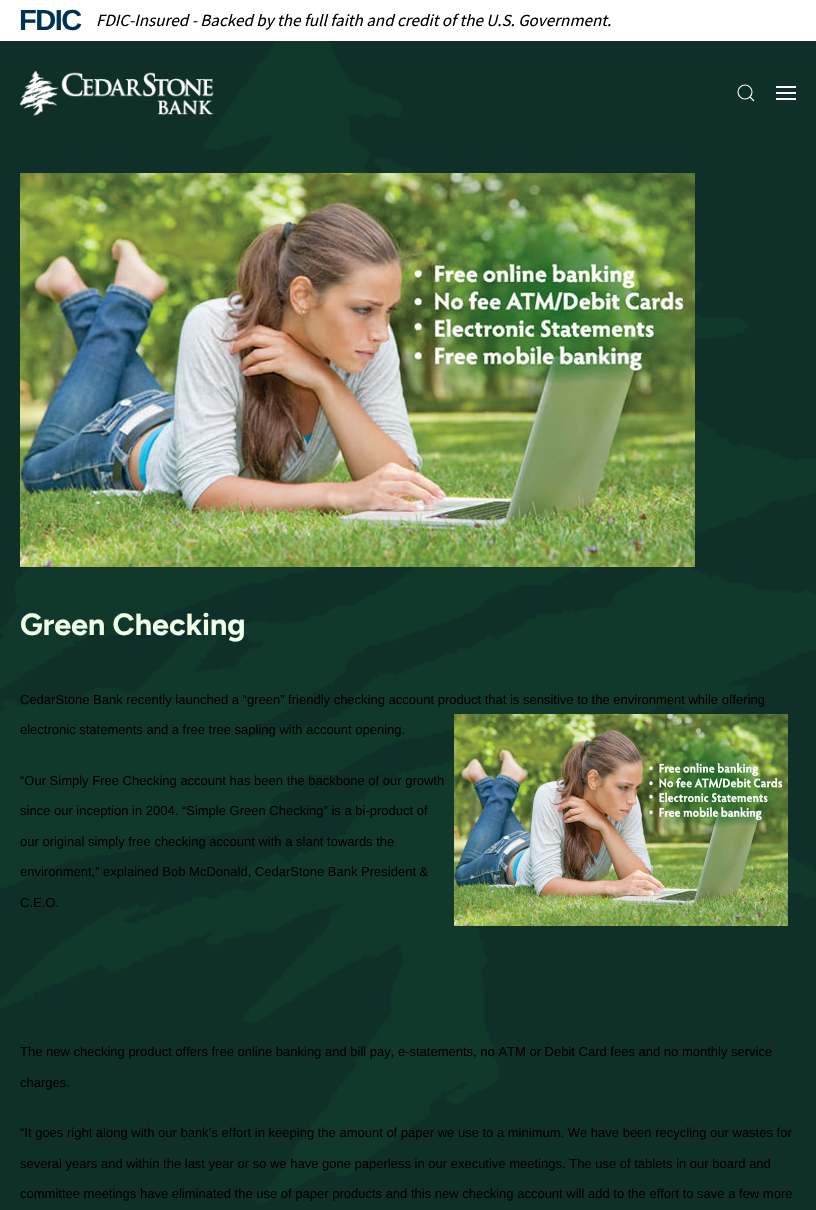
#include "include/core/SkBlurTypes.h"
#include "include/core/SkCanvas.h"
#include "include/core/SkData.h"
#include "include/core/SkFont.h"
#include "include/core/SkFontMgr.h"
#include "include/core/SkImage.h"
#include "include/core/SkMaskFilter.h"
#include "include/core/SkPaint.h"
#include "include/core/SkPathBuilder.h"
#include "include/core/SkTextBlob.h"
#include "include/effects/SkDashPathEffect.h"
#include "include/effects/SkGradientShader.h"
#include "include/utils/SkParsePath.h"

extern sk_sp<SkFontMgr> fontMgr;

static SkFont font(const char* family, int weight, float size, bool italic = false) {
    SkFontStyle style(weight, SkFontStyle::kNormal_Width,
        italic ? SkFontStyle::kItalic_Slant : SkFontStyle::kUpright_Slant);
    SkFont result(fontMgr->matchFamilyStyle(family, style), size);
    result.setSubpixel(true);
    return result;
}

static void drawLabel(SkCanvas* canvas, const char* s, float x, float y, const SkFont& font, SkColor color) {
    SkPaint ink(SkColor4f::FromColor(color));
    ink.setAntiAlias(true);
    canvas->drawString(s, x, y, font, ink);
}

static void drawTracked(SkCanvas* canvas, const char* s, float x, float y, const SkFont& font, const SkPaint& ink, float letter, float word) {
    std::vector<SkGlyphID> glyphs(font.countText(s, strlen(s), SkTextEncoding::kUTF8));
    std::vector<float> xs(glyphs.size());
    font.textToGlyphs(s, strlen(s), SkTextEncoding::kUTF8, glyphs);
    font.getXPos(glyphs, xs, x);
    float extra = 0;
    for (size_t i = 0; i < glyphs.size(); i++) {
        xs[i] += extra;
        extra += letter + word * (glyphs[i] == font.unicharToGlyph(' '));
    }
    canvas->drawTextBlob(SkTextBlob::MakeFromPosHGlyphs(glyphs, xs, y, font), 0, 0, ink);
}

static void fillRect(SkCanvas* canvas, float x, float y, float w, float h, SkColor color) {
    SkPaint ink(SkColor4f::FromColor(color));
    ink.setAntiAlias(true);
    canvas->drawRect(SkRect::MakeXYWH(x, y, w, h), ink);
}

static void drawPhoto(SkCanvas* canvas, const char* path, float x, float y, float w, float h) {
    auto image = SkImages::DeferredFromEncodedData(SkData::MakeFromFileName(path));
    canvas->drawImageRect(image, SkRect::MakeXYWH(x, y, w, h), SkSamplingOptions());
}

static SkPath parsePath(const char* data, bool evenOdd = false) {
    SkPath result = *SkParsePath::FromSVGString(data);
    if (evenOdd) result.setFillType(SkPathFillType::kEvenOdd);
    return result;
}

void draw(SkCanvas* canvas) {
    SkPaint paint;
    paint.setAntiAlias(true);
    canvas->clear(0xFF0E3028);
    fillRect(canvas, 0, 0, 816, 41, 0xFFFFFFFF);
    SkFont font1 = font("Liberation Sans", 700, 29);
    paint.setColor(0xFF003256);
    drawTracked(canvas, "FDIC", 19, 30, font1, paint, -1.5f, 0);
    SkFont font2 = font("Source Sans Pro", 400, 17, true);
    drawLabel(canvas, "FDIC-Insured - Backed by the full faith and credit of the U.S. Government.", 96, 26, font2, 0xFF000000);
    drawPhoto(canvas, "assets/img1.png", 0, 41, 816, 1163);
    drawPhoto(canvas, "assets/img2.png", 20, 71, 194, 45);
    paint.setStroke(true);
    paint.setStrokeWidth(1.1f);
    paint.setColor(0xFFFFFFFF);
    canvas->drawCircle(745, 92, 7, paint);
    canvas->drawPath(parsePath("M750 97L754 101Z"), paint);
    fillRect(canvas, 776, 86, 20, 2, 0xFFFFFFFF);
    fillRect(canvas, 776, 92, 20, 2, 0xFFFFFFFF);
    fillRect(canvas, 776, 98, 20, 2, 0xFFFFFFFF);
    drawPhoto(canvas, "assets/img3.png", 20, 173, 675, 394);
    SkFont font3 = font("Figtree", 300, 30.5f);
    drawLabel(canvas, "Green Checking", 20, 635, font3, 0xFFEEFFEA);
    SkFont font4 = font("Liberation Sans", 400, 13);
    drawLabel(canvas, "CedarStone Bank recently launched a “green” friendly checking account product that is sensitive to the environment while offering", 20, 704, font4, 0xFF000000);
    drawLabel(canvas, "electronic statements and a free tree sapling with account opening.", 20, 734, font4, 0xFF000000);
    drawPhoto(canvas, "assets/img4.png", 454, 714, 334, 212);
    drawLabel(canvas, "“Our Simply Free Checking account has been the backbone of our growth", 20, 785, font4, 0xFF000000);
    drawLabel(canvas, "since our inception in 2004. “Simple Green Checking” is a bi-product of", 20, 815, font4, 0xFF000000);
    drawLabel(canvas, "our original simply free checking account with a slant towards the", 20, 846, font4, 0xFF000000);
    drawLabel(canvas, "environment,” explained Bob McDonald, CedarStone Bank President &", 20, 876, font4, 0xFF000000);
    drawLabel(canvas, "C.E.O.", 20, 907, font4, 0xFF000000);
    drawLabel(canvas, "The new checking product offers free online banking and bill pay, e-statements, no ATM or Debit Card fees and no monthly service", 20, 1056, font4, 0xFF000000);
    drawLabel(canvas, "charges.", 20, 1087, font4, 0xFF000000);
    drawLabel(canvas, "“It goes right along with our bank’s effort in keeping the amount of paper we use to a minimum. We have been recycling our wastes for", 20, 1137, font4, 0xFF000000);
    drawLabel(canvas, "several years and within the last year or so we have gone paperless in our executive meetings. The use of tablets in our board and", 20, 1168, font4, 0xFF000000);
    drawLabel(canvas, "committee meetings have eliminated the use of paper products and this new checking account will add to the effort to save a few more", 20, 1198, font4, 0xFF000000);
}
